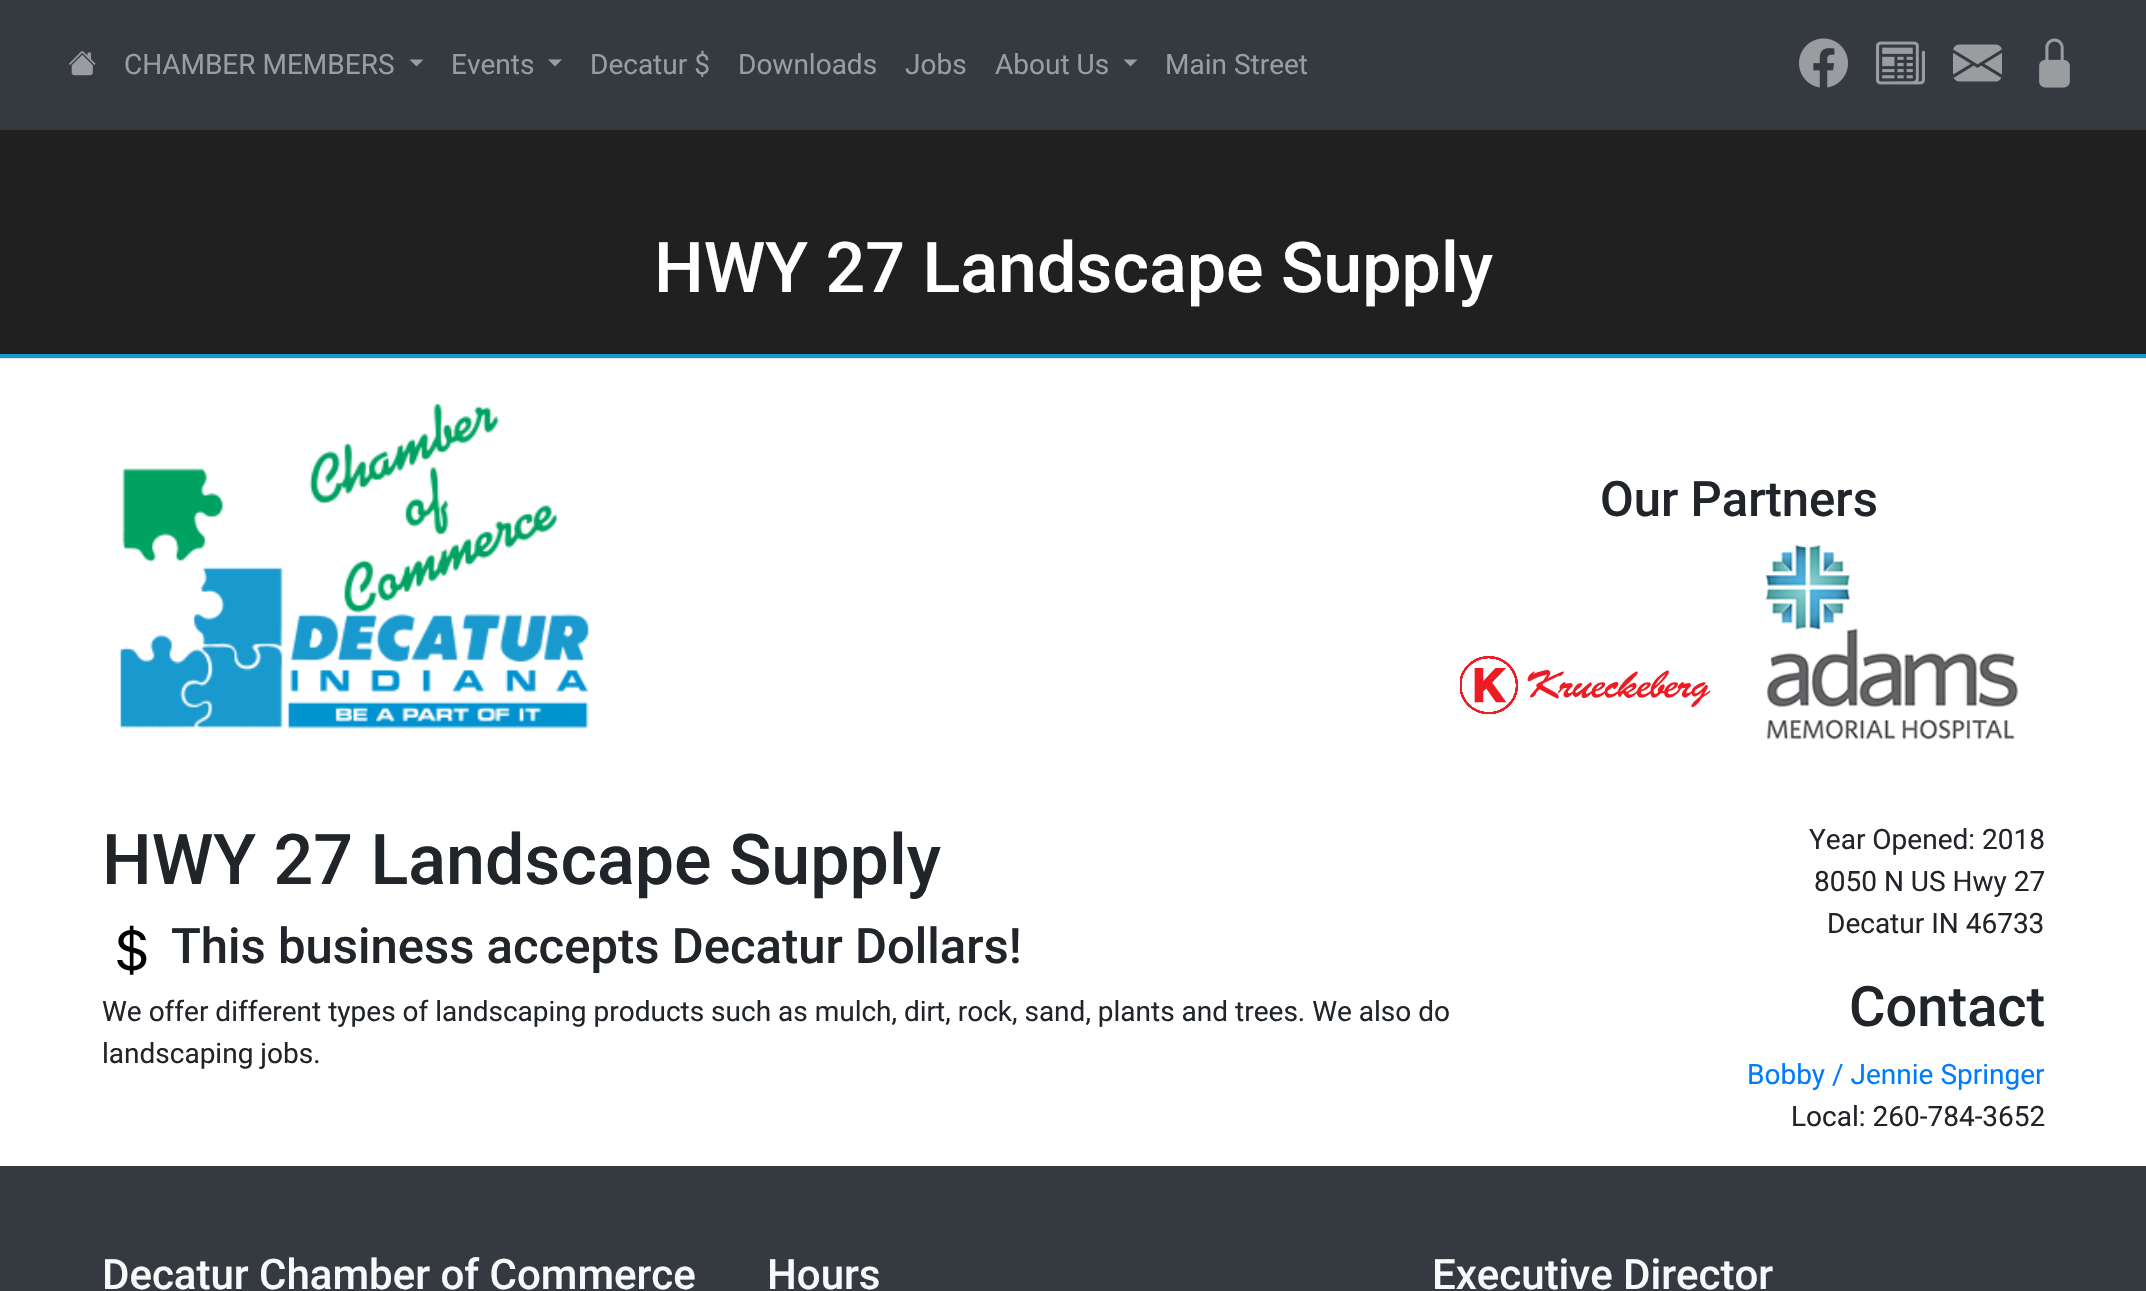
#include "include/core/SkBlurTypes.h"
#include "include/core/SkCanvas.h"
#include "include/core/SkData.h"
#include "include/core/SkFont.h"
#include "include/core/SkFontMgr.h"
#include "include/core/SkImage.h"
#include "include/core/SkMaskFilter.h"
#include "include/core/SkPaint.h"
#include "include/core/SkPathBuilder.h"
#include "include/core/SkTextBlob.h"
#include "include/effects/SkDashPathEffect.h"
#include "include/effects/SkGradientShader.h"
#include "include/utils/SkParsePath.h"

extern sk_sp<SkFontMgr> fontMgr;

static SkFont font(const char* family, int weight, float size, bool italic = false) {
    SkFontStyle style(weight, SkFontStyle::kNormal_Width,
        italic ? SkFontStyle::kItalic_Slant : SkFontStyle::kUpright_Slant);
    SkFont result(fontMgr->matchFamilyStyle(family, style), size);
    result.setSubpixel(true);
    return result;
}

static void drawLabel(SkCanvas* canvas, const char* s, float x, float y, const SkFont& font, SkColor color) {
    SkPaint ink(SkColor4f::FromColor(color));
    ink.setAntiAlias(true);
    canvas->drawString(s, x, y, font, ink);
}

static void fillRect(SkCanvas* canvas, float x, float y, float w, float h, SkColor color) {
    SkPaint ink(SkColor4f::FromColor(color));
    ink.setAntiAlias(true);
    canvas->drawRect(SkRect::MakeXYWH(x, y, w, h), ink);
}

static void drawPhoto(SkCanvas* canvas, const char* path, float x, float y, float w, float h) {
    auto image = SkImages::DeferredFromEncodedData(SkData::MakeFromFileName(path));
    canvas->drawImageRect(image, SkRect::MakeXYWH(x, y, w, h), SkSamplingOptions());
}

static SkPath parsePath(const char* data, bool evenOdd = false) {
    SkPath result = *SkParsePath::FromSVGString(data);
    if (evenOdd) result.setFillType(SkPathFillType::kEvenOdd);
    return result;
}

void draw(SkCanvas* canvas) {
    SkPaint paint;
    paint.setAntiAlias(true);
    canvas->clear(0xFFFFFFFF);
    fillRect(canvas, 0, 0, 2146, 130, 0xFF343A40);
    drawPhoto(canvas, "assets/img1.png", 69, 51, 27, 25);
    SkFont font1 = font("Roboto", 400, 28);
    drawLabel(canvas, "CHAMBER MEMBERS", 124, 74, font1, 0xFF9A9DA0);
    paint.setColor(0xFF9A9DA0);
    canvas->drawPath(parsePath("M409.5 59.5H423.5L416.5 66.5Z"), paint);
    drawLabel(canvas, "Events", 451, 74, font1, 0xFF9A9DA0);
    canvas->drawPath(parsePath("M548 59.5H562L555 66.5Z"), paint);
    drawLabel(canvas, "Decatur $", 590, 74, font1, 0xFF9A9DA0);
    drawLabel(canvas, "Downloads", 738, 74, font1, 0xFF9A9DA0);
    drawLabel(canvas, "Jobs", 905, 74, font1, 0xFF9A9DA0);
    drawLabel(canvas, "About Us", 995, 74, font1, 0xFF9A9DA0);
    canvas->drawPath(parsePath("M1123.5 59.5H1137.5L1130.5 66.5Z"), paint);
    drawLabel(canvas, "Main Street", 1165, 74, font1, 0xFF9A9DA0);
    drawPhoto(canvas, "assets/img2.png", 1799, 38, 49, 50);
    drawPhoto(canvas, "assets/img3.png", 1876, 41, 49, 44);
    drawPhoto(canvas, "assets/img4.png", 1953, 44, 49, 38);
    drawPhoto(canvas, "assets/img5.png", 2039, 38, 31, 50);
    fillRect(canvas, 0, 358, 2146, 1, 0xFFDEE2E6);
    fillRect(canvas, 0, 130, 2146, 224, 0xFF202020);
    fillRect(canvas, 0, 354, 2146, 4, 0xFF1999CE);
    SkFont font2 = font("Roboto", 500, 70);
    drawLabel(canvas, "HWY 27 Landscape Supply", 654, 292, font2, 0xFFFFFFFF);
    drawPhoto(canvas, "assets/img6.png", 120, 403, 469, 326);
    SkFont font3 = font("Roboto", 500, 49);
    drawLabel(canvas, "Our Partners", 1600, 516, font3, 0xFF212529);
    drawPhoto(canvas, "assets/img7.png", 1460, 656, 251, 58);
    drawPhoto(canvas, "assets/img8.png", 1765, 544, 253, 196);
    drawLabel(canvas, "HWY 27 Landscape Supply", 102, 884, font2, 0xFF212529);
    drawPhoto(canvas, "assets/img9.png", 117, 925, 30, 50);
    drawLabel(canvas, "This business accepts Decatur Dollars!", 171, 963, font3, 0xFF212529);
    drawLabel(canvas, "We offer different types of landscaping products such as mulch, dirt, rock, sand, plants and trees. We also do", 102, 1021, font1, 0xFF212529);
    drawLabel(canvas, "landscaping jobs.", 102, 1063, font1, 0xFF212529);
    drawLabel(canvas, "Year Opened: 2018", 1809, 849, font1, 0xFF212529);
    drawLabel(canvas, "8050 N US Hwy 27", 1814, 891, font1, 0xFF212529);
    drawLabel(canvas, "Decatur IN 46733", 1827, 933, font1, 0xFF212529);
    SkFont font4 = font("Roboto", 500, 56);
    drawLabel(canvas, "Contact", 1849, 1026, font4, 0xFF212529);
    drawLabel(canvas, "Bobby / Jennie Springer", 1747, 1084, font1, 0xFF007BFF);
    drawLabel(canvas, "Local: 260-784-3652", 1791, 1126, font1, 0xFF212529);
    fillRect(canvas, 0, 1166, 2146, 125, 0xFF343A40);
    SkFont font5 = font("Roboto", 500, 42);
    drawLabel(canvas, "Decatur Chamber of Commerce", 102, 1289, font5, 0xFFF8F9FA);
    drawLabel(canvas, "Hours", 767, 1289, font5, 0xFFF8F9FA);
    drawLabel(canvas, "Executive Director", 1432, 1289, font5, 0xFFF8F9FA);
}
